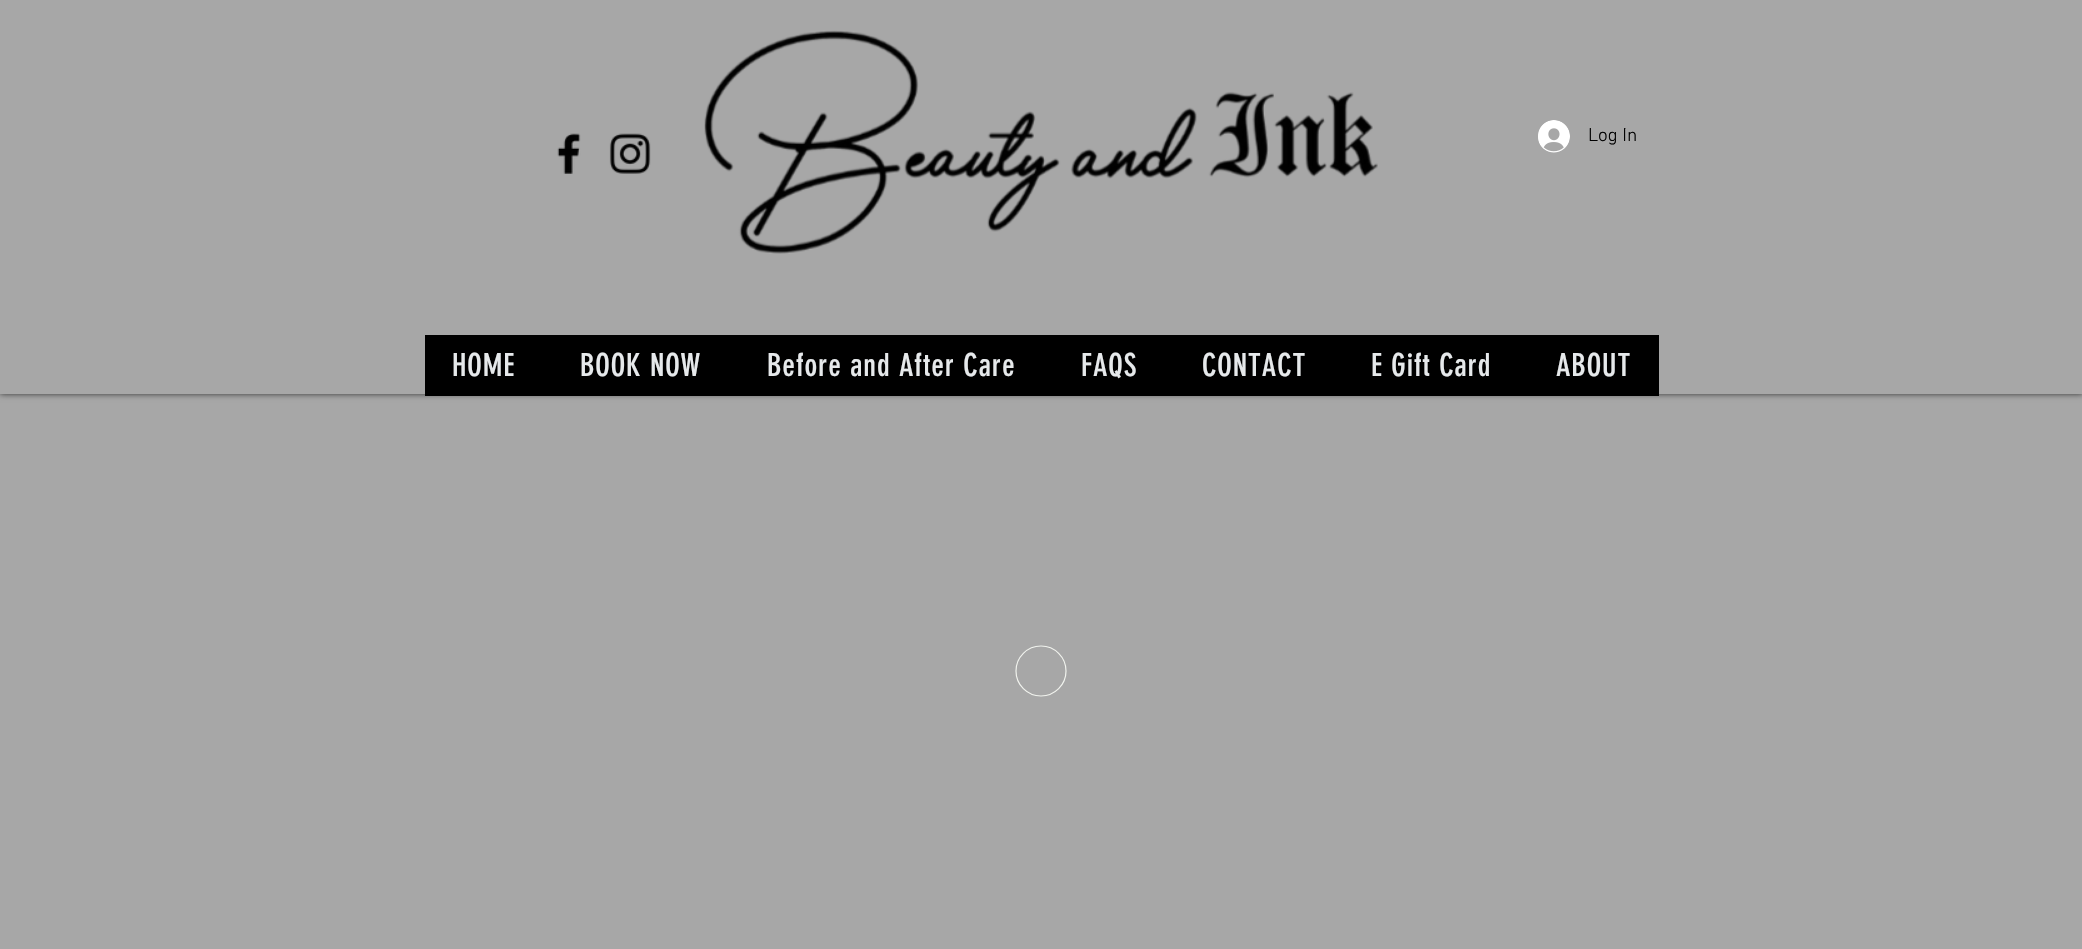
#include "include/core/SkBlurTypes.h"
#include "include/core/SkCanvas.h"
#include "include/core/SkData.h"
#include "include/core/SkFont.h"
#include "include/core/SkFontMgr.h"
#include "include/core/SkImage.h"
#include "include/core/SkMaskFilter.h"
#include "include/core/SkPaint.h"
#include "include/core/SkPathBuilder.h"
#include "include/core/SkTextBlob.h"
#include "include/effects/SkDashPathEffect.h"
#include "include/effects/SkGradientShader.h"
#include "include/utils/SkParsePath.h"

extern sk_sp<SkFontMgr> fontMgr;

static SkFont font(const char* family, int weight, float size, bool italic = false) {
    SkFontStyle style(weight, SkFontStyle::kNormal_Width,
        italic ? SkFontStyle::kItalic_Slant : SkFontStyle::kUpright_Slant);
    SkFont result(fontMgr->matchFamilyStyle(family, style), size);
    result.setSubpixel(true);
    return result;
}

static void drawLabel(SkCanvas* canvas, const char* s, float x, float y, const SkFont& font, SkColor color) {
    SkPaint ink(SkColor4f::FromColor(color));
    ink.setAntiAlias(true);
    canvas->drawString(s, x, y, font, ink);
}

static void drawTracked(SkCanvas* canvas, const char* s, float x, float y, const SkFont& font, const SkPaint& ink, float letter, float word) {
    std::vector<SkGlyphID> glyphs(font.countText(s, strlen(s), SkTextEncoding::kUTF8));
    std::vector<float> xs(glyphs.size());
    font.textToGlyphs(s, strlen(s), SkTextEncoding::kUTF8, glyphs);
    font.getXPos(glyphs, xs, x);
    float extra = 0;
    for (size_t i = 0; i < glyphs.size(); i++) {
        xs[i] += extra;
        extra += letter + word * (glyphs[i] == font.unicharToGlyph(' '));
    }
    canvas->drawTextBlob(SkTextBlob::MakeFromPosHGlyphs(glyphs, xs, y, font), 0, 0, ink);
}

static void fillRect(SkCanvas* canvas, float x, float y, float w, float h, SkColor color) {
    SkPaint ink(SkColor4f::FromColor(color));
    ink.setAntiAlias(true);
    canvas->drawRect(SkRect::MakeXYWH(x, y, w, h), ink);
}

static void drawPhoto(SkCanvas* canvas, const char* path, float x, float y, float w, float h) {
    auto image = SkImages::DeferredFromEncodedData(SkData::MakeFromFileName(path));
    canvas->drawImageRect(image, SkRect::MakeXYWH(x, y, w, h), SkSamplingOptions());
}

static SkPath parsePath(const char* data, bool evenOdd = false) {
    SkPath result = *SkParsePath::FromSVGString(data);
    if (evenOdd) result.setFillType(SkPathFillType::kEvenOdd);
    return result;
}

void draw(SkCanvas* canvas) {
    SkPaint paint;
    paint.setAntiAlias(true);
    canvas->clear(0xFFA7A7A7);
    canvas->save();
    canvas->clipPath(parsePath("M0 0H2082V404H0ZM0 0H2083V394H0Z", true), true);
    paint.setColor(0xB3000000);
    paint.setMaskFilter(SkMaskFilter::MakeBlur(kNormal_SkBlurStyle, 3));
    canvas->drawRect(SkRect::MakeXYWH(0, 0, 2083, 394), paint);
    paint.setMaskFilter(nullptr);
    canvas->restore();
    drawPhoto(canvas, "assets/img1.png", 557, 133, 24, 41);
    drawPhoto(canvas, "assets/img2.png", 609, 133, 42, 41);
    drawPhoto(canvas, "assets/img3.png", 704, 30, 674, 224);
    drawPhoto(canvas, "assets/img4.png", 1538, 120, 32, 33);
    SkFont font1 = font("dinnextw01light", 300, 19);
    drawLabel(canvas, "Log In", 1588, 141, font1, 0xFF000000);
    fillRect(canvas, 425, 335, 1234, 61, 0xFF000000);
    SkFont font2 = font("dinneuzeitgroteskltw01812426", 400, 31.25f);
    paint.setColor(0xFFE6E9EB);
    drawTracked(canvas, "HOME", 452, 376, font2, paint, 0.9f, 0);
    drawTracked(canvas, "BOOK NOW", 580, 376, font2, paint, 0.9f, 0);
    drawTracked(canvas, "Before and After Care", 767, 376, font2, paint, 0.9f, 0);
    drawTracked(canvas, "FAQS", 1081, 376, font2, paint, 0.9f, 0);
    drawTracked(canvas, "CONTACT", 1202, 376, font2, paint, 0.9f, 0);
    drawTracked(canvas, "E Gift Card", 1371, 376, font2, paint, 0.9f, 0);
    drawTracked(canvas, "ABOUT", 1556, 376, font2, paint, 0.9f, 0);
    paint.setStroke(true);
    paint.setStrokeWidth(1.2f);
    paint.setColor(0xFFF1F3EE);
    canvas->drawCircle(1041, 671, 25, paint);
}
